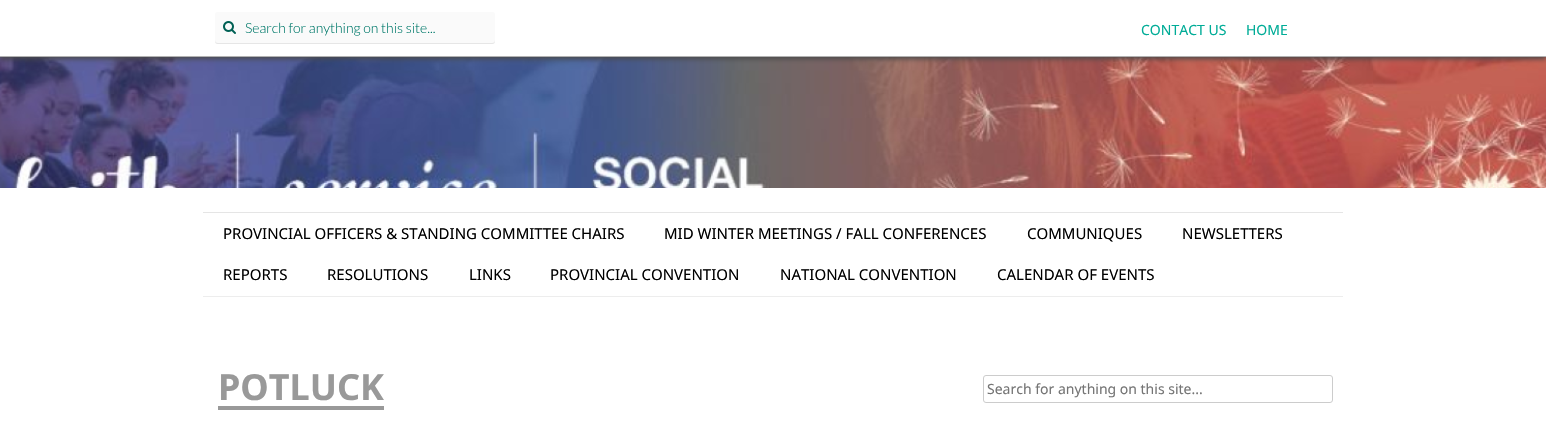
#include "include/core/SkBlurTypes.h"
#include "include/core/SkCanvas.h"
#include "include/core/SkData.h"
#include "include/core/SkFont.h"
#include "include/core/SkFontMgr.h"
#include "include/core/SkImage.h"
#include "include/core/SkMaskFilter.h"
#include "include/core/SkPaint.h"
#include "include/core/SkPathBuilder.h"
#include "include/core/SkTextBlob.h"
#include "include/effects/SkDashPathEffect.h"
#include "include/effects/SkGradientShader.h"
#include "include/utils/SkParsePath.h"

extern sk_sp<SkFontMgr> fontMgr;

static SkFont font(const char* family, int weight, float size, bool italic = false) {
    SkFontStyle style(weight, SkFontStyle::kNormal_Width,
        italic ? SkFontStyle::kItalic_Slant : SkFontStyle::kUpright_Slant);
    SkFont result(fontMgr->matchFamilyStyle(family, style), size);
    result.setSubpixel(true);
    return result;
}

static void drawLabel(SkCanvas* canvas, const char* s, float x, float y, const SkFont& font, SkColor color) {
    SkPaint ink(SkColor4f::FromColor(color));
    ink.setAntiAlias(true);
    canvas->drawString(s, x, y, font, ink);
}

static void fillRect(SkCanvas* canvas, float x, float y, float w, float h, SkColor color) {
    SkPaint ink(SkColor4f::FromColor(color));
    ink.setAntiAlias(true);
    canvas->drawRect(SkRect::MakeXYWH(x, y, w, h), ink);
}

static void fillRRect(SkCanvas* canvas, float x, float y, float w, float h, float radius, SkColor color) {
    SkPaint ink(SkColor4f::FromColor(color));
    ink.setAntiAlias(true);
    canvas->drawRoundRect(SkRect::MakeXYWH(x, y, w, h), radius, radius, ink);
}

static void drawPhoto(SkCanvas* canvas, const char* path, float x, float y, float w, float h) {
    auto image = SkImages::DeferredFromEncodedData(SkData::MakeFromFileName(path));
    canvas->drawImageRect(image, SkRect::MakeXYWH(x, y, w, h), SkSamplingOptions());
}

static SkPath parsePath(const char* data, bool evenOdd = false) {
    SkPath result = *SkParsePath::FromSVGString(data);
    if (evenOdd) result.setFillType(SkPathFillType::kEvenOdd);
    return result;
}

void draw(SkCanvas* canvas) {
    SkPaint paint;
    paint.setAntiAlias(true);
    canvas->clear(0xFFFFFFFF);
    drawPhoto(canvas, "assets/img2.png", 0, 57, 1546, 131);
    paint.setColor(0xFF4A4A4A);
    paint.setMaskFilter(SkMaskFilter::MakeBlur(kNormal_SkBlurStyle, 2.5f));
    canvas->drawRect(SkRect::MakeXYWH(0, 2, 1546, 57), paint);
    paint.setMaskFilter(nullptr);
    fillRect(canvas, 0, 0, 1546, 56, 0xFFFFFFFF);
    fillRect(canvas, 0, 56, 1546, 1, 0xFFB2B2B2);
    fillRRect(canvas, 215, 12, 280, 32, 3, 0xFFFAFAFA);
    drawPhoto(canvas, "assets/img1.png", 223, 21, 13, 13);
    paint.setColor(0xFFE6E6E6);
    canvas->drawPath(parsePath("M215 40V41C215 43 216 44 218 44H492C494 44 495 43 495 41V40C495 42 494 43 492 43H218C216 43 215 42 215 40Z"), paint);
    SkFont font1 = font("Lato", 300, 14);
    drawLabel(canvas, "Search for anything on this site...", 245, 33, font1, 0xFF00796A);
    SkFont font2 = font("Noto Sans", 400, 14);
    drawLabel(canvas, "CONTACT US", 1141, 35, font2, 0xFF00AC97);
    drawLabel(canvas, "HOME", 1246, 35, font2, 0xFF00AC97);
    fillRect(canvas, 203, 212, 1140, 1, 0xFFE5E5E5);
    fillRect(canvas, 203, 296, 1140, 1, 0xFFEDEDED);
    SkFont font3 = font("Noto Sans", 400, 15);
    drawLabel(canvas, "PROVINCIAL OFFICERS & STANDING COMMITTEE CHAIRS", 223, 239, font3, 0xFF000000);
    drawLabel(canvas, "MID WINTER MEETINGS / FALL CONFERENCES", 664, 239, font3, 0xFF000000);
    drawLabel(canvas, "COMMUNIQUES", 1027, 239, font3, 0xFF000000);
    drawLabel(canvas, "NEWSLETTERS", 1182, 239, font3, 0xFF000000);
    drawLabel(canvas, "REPORTS", 223, 280, font3, 0xFF000000);
    drawLabel(canvas, "RESOLUTIONS", 327, 280, font3, 0xFF000000);
    drawLabel(canvas, "LINKS", 469, 280, font3, 0xFF000000);
    drawLabel(canvas, "PROVINCIAL CONVENTION", 550, 280, font3, 0xFF000000);
    drawLabel(canvas, "NATIONAL CONVENTION", 780, 280, font3, 0xFF000000);
    drawLabel(canvas, "CALENDAR OF EVENTS", 997, 280, font3, 0xFF000000);
    fillRect(canvas, 218, 406, 166, 4, 0xFF999999);
    SkFont font4 = font("Noto Sans", 700, 36);
    drawLabel(canvas, "POTLUCK", 218, 400, font4, 0xFF999999);
    paint.setStroke(true);
    paint.setStrokeWidth(1);
    paint.setColor(0xFFCCCCCC);
    canvas->drawRoundRect(SkRect::MakeXYWH(983.5f, 375.5f, 349, 27), 2.5f, 2.5f, paint);
    drawLabel(canvas, "Search for anything on this site...", 987, 394, font2, 0xFF757575);
}
